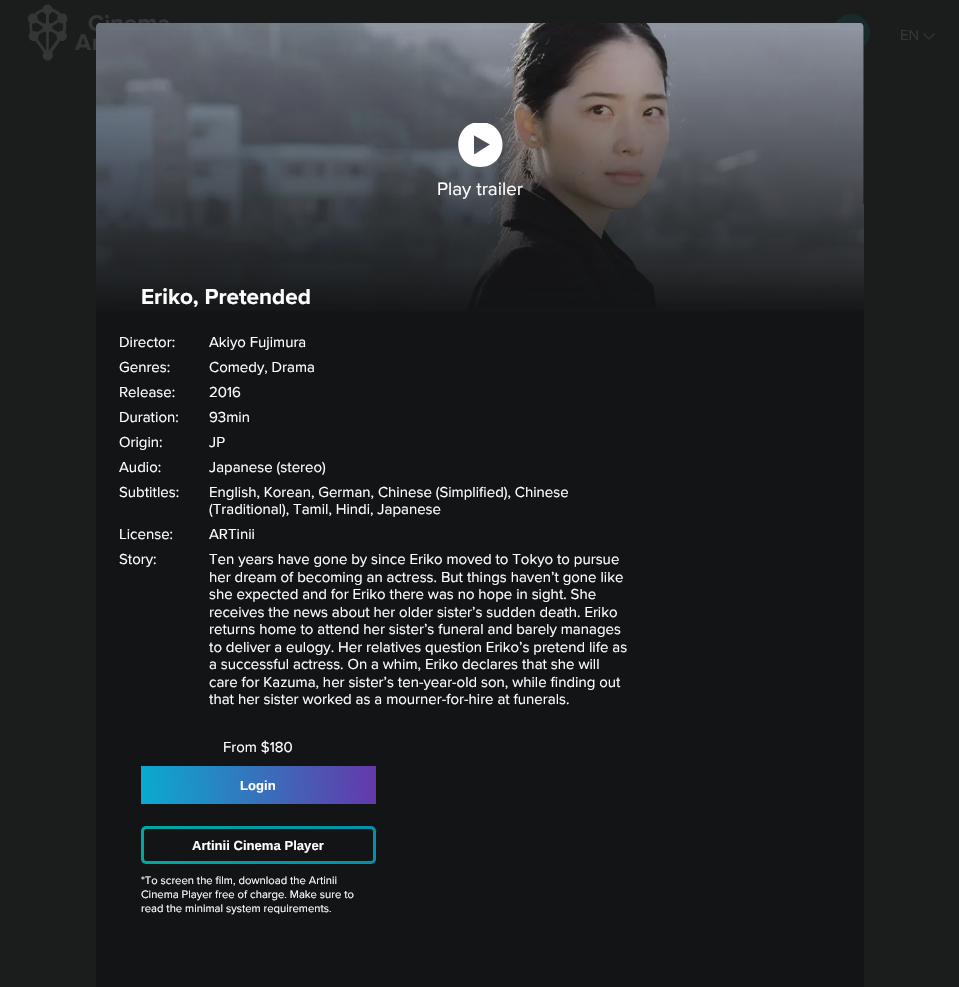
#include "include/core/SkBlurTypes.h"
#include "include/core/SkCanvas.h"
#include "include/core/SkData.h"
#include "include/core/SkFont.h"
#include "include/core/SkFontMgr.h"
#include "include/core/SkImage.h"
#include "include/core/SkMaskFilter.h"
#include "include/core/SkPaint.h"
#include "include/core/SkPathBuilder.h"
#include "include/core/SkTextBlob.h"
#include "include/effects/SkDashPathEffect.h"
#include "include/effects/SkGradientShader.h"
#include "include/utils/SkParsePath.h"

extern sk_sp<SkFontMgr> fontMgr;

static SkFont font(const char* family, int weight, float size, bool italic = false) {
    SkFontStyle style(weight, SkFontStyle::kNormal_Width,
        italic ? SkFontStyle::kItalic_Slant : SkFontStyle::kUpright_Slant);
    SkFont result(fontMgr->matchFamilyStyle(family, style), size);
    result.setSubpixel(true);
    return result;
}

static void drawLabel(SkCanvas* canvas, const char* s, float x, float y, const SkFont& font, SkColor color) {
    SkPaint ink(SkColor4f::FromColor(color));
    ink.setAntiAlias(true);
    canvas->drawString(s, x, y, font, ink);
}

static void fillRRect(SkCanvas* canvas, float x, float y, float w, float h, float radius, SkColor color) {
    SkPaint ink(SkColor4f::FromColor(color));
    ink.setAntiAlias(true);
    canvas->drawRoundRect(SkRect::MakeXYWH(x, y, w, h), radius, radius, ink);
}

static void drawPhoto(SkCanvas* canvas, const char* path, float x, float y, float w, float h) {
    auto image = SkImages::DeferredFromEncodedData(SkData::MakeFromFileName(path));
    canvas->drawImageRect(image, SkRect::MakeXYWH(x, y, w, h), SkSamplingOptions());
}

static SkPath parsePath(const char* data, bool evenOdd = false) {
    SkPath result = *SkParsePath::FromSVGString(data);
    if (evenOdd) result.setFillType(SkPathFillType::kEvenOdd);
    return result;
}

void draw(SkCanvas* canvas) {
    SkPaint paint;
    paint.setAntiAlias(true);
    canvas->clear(0xFF1B1C1C);
    drawPhoto(canvas, "assets/img1.png", 27, 4, 142, 57);
    {
        const SkColor colors[] = {0xFF1A2C2B, 0xFF1A292C};
        const float stops[] = {0, 1};
        const SkPoint ends[] = {{827, 34}, {873, 31}};
        paint.setShader(SkGradientShader::MakeLinear(ends, colors, stops, 2, SkTileMode::kClamp));
        paint.setAlpha(255);
    }
    canvas->drawCircle(851.5f, 32.5f, 18.5f, paint);
    SkFont font1 = font("Proxima Nova", 400, 15);
    drawLabel(canvas, "EN", 900, 40, font1, 0xFF343434);
    paint.setStroke(true);
    paint.setStrokeWidth(1.2f);
    paint.setShader(nullptr);
    paint.setColor(0xFF343434);
    canvas->drawPath(parsePath("M923.5 33.5L929 39L934.5 33.5"), paint);
    fillRRect(canvas, 96, 23, 768, 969, 5, 0xFF131415);
    drawPhoto(canvas, "assets/img2.png", 96, 23, 768, 289);
    paint.setStroke(false);
    {
        const SkColor colors[] = {0x00131415, 0xFF131415};
        const float stops[] = {0, 1};
        const SkPoint ends[] = {{480, 25}, {480, 314}};
        paint.setShader(SkGradientShader::MakeLinear(ends, colors, stops, 2, SkTileMode::kClamp));
        paint.setAlpha(255);
    }
    canvas->drawRect(SkRect::MakeXYWH(96, 31, 768, 281), paint);
    canvas->save();
    canvas->clipRect(SkRect::MakeXYWH(458, 123, 45, 44));
    paint.setShader(nullptr);
    paint.setColor(0xFFFFFFFF);
    canvas->drawPath(parsePath("M480 122C451 122 451 167 480 167C510 167 510 122 480 122ZM489 145L475 154C474 154 474 154 474 153V136C474 136 474 135 475 136L489 144C490 144 490 145 489 145Z"), paint);
    canvas->restore();
    SkFont font2 = font("Proxima Nova", 400, 18.75f);
    drawLabel(canvas, "Play trailer", 437, 195, font2, 0xFFFFFFFF);
    SkFont font3 = font("Proxima Nova", 700, 22.5f);
    drawLabel(canvas, "Eriko, Pretended", 141, 304, font3, 0xFFFFFFFF);
    drawLabel(canvas, "Director:", 119, 347, font1, 0xFFFFFFFF);
    drawLabel(canvas, "Akiyo Fujimura", 209, 347, font1, 0xFFFFFFFF);
    drawLabel(canvas, "Genres:", 119, 372, font1, 0xFFFFFFFF);
    drawLabel(canvas, "Comedy, Drama", 209, 372, font1, 0xFFFFFFFF);
    drawLabel(canvas, "Release:", 119, 397, font1, 0xFFFFFFFF);
    drawLabel(canvas, "2016", 209, 397, font1, 0xFFFFFFFF);
    drawLabel(canvas, "Duration:", 119, 422, font1, 0xFFFFFFFF);
    drawLabel(canvas, "93min", 209, 422, font1, 0xFFFFFFFF);
    drawLabel(canvas, "Origin:", 119, 447, font1, 0xFFFFFFFF);
    drawLabel(canvas, "JP", 209, 447, font1, 0xFFFFFFFF);
    drawLabel(canvas, "Audio:", 119, 472, font1, 0xFFFFFFFF);
    drawLabel(canvas, "Japanese (stereo)", 209, 472, font1, 0xFFFFFFFF);
    drawLabel(canvas, "Subtitles:", 119, 497, font1, 0xFFFFFFFF);
    drawLabel(canvas, "English, Korean, German, Chinese (Simplified), Chinese", 209, 497, font1, 0xFFFFFFFF);
    drawLabel(canvas, "(Traditional), Tamil, Hindi, Japanese", 209, 514, font1, 0xFFFFFFFF);
    drawLabel(canvas, "License:", 119, 539, font1, 0xFFFFFFFF);
    drawLabel(canvas, "ARTinii", 209, 539, font1, 0xFFFFFFFF);
    drawLabel(canvas, "Story:", 119, 564, font1, 0xFFFFFFFF);
    drawLabel(canvas, "Ten years have gone by since Eriko moved to Tokyo to pursue", 209, 564, font1, 0xFFFFFFFF);
    drawLabel(canvas, "her dream of becoming an actress. But things haven’t gone like", 209, 582, font1, 0xFFFFFFFF);
    drawLabel(canvas, "she expected and for Eriko there was no hope in sight. She", 209, 599, font1, 0xFFFFFFFF);
    drawLabel(canvas, "receives the news about her older sister’s sudden death. Eriko", 209, 617, font1, 0xFFFFFFFF);
    drawLabel(canvas, "returns home to attend her sister’s funeral and barely manages", 209, 634, font1, 0xFFFFFFFF);
    drawLabel(canvas, "to deliver a eulogy. Her relatives question Eriko’s pretend life as", 209, 652, font1, 0xFFFFFFFF);
    drawLabel(canvas, "a successful actress. On a whim, Eriko declares that she will", 209, 669, font1, 0xFFFFFFFF);
    drawLabel(canvas, "care for Kazuma, her sister’s ten-year-old son, while finding out", 209, 687, font1, 0xFFFFFFFF);
    drawLabel(canvas, "that her sister worked as a mourner-for-hire at funerals.", 209, 704, font1, 0xFFFFFFFF);
    drawLabel(canvas, "From $180", 223, 752, font1, 0xFFFFFFFF);
    {
        const SkColor colors[] = {0xFF00B7D3, 0xFF6932A8};
        const float stops[] = {0, 1};
        const SkPoint ends[] = {{114, 793}, {390, 777}};
        paint.setShader(SkGradientShader::MakeLinear(ends, colors, stops, 2, SkTileMode::kClamp));
        paint.setAlpha(255);
    }
    canvas->drawRect(SkRect::MakeXYWH(141, 766, 235, 38), paint);
    SkFont font4 = font("Liberation Sans", 700, 13.1f);
    drawLabel(canvas, "Login", 240, 790, font4, 0xFFFFFFFF);
    {
        const SkColor colors[] = {0xFF00AB9E, 0xFF008FAC};
        const float stops[] = {0, 1};
        const SkPoint ends[] = {{114, 853}, {390, 837}};
        paint.setShader(SkGradientShader::MakeLinear(ends, colors, stops, 2, SkTileMode::kClamp));
        paint.setAlpha(255);
    }
    canvas->drawRoundRect(SkRect::MakeXYWH(141, 826, 235, 38), 5, 5, paint);
    fillRRect(canvas, 144, 829, 229, 32, 2.5f, 0xFF131415);
    drawLabel(canvas, "Artinii Cinema Player", 192, 850, font4, 0xFFFFFFFF);
    SkFont font5 = font("Proxima Nova", 400, 11.25f);
    drawLabel(canvas, "*To screen the film, download the Artinii", 141, 884, font5, 0xFFFFFFFF);
    drawLabel(canvas, "Cinema Player free of charge. Make sure to", 141, 898, font5, 0xFFFFFFFF);
    drawLabel(canvas, "read the minimal system requirements.", 141, 912, font5, 0xFFFFFFFF);
}
